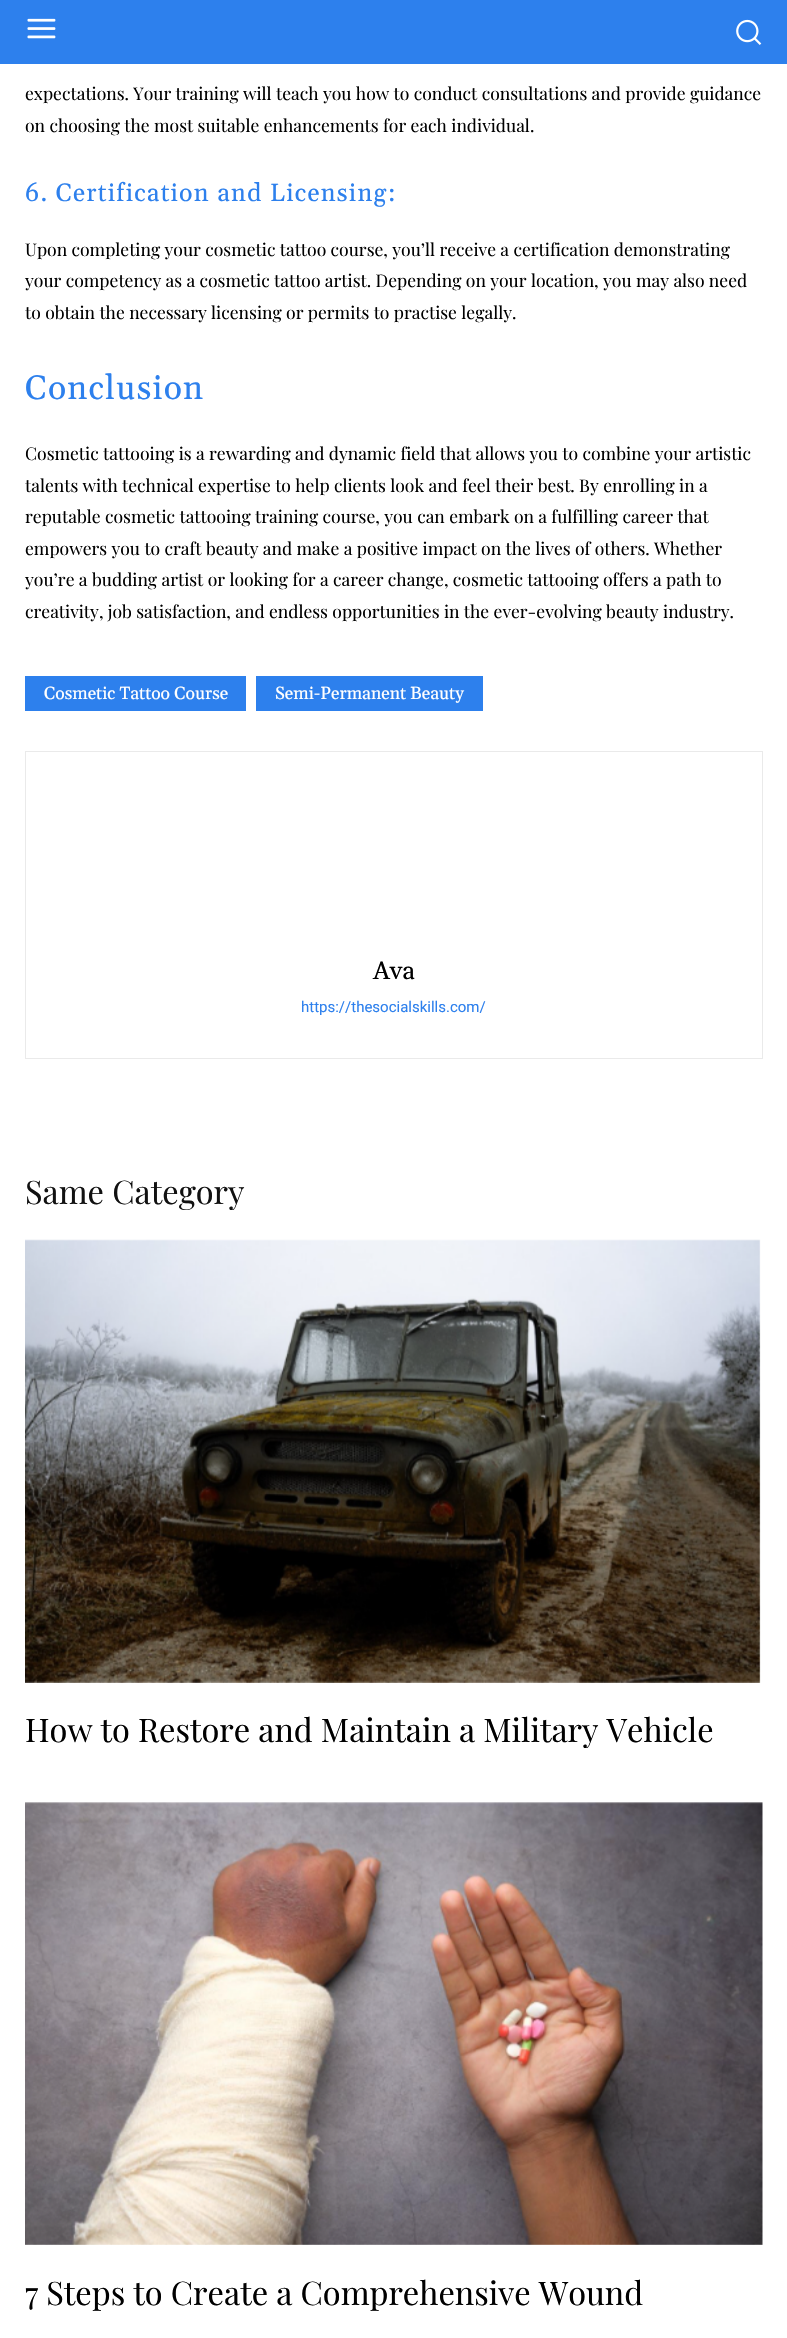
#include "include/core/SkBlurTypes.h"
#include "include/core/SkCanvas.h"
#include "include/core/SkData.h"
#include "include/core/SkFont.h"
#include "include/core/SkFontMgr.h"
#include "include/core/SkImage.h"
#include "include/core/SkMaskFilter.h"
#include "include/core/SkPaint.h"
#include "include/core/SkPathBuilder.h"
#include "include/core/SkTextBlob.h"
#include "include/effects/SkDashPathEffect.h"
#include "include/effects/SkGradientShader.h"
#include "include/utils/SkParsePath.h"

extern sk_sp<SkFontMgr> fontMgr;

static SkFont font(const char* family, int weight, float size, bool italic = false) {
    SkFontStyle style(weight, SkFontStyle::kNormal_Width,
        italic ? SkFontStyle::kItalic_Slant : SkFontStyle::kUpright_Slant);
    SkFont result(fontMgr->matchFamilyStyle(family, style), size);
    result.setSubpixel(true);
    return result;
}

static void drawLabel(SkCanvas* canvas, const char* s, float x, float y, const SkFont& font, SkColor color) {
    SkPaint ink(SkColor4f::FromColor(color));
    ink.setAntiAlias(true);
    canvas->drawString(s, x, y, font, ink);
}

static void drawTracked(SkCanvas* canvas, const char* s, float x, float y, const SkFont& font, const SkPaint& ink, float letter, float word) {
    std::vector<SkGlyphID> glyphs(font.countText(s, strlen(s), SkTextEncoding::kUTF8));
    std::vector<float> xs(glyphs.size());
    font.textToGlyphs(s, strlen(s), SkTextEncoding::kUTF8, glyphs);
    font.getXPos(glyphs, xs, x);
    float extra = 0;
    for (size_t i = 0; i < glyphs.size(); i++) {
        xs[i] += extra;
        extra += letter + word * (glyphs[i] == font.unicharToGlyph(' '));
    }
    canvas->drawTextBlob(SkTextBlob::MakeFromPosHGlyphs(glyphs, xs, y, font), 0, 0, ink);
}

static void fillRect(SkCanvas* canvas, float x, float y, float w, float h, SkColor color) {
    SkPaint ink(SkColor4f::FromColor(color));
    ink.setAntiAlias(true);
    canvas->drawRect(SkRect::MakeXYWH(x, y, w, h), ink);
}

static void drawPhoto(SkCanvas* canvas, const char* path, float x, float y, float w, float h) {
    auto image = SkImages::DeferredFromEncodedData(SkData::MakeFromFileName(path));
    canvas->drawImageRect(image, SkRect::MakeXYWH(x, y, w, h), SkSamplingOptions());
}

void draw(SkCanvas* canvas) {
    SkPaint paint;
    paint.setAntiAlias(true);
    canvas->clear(0xFFFFFFFF);
    fillRect(canvas, 0, 0, 787, 64, 0xFF2D80ED);
    drawPhoto(canvas, "assets/img1.png", 27, 18, 29, 21);
    drawPhoto(canvas, "assets/img2.png", 736, 19, 26, 26);
    SkFont font1 = font("Playfair Display", 400, 17.5f);
    drawLabel(canvas, "expectations. Your training will teach you how to conduct consultations and provide guidance", 25, 100, font1, 0xFF000000);
    drawLabel(canvas, "on choosing the most suitable enhancements for each individual.", 25, 132, font1, 0xFF000000);
    SkFont font2 = font("Gelasio", 400, 25);
    paint.setColor(0xFF2D80ED);
    drawTracked(canvas, "6. Certification and Licensing:", 25, 201, font2, paint, 1.25f, 0);
    drawLabel(canvas, "Upon completing your cosmetic tattoo course, you’ll receive a certification demonstrating", 25, 256, font1, 0xFF000000);
    drawLabel(canvas, "your competency as a cosmetic tattoo artist. Depending on your location, you may also need", 25, 287, font1, 0xFF000000);
    drawLabel(canvas, "to obtain the necessary licensing or permits to practise legally.", 25, 319, font1, 0xFF000000);
    SkFont font3 = font("Gelasio", 400, 33.75f);
    drawTracked(canvas, "Conclusion", 25, 399, font3, paint, 1.25f, 0);
    drawLabel(canvas, "Cosmetic tattooing is a rewarding and dynamic field that allows you to combine your artistic", 25, 460, font1, 0xFF000000);
    drawLabel(canvas, "talents with technical expertise to help clients look and feel their best. By enrolling in a", 25, 492, font1, 0xFF000000);
    drawLabel(canvas, "reputable cosmetic tattooing training course, you can embark on a fulfilling career that", 25, 523, font1, 0xFF000000);
    drawLabel(canvas, "empowers you to craft beauty and make a positive impact on the lives of others. Whether", 25, 555, font1, 0xFF000000);
    drawLabel(canvas, "you’re a budding artist or looking for a career change, cosmetic tattooing offers a path to", 25, 586, font1, 0xFF000000);
    drawLabel(canvas, "creativity, job satisfaction, and endless opportunities in the ever-evolving beauty industry.", 25, 618, font1, 0xFF000000);
    fillRect(canvas, 25, 676, 221, 35, 0xFF2D80ED);
    SkFont font4 = font("Gelasio", 400, 17.5f);
    drawLabel(canvas, "Cosmetic Tattoo Course", 44, 699, font4, 0xFFFFFFFF);
    fillRect(canvas, 256, 676, 227, 35, 0xFF2D80ED);
    drawLabel(canvas, "Semi-Permanent Beauty", 275, 699, font4, 0xFFFFFFFF);
    paint.setStroke(true);
    paint.setStrokeWidth(1);
    paint.setColor(0xFFEAEAEA);
    canvas->drawRect(SkRect::MakeXYWH(25.5f, 751.5f, 737, 307), paint);
    drawLabel(canvas, "Ava", 373, 979, font2, 0xFF000000);
    SkFont font5 = font("Roboto", 400, 15);
    drawLabel(canvas, "https://thesocialskills.com/", 301, 1012, font5, 0xFF2D80ED);
    SkFont font6 = font("Playfair Display", 400, 32.5f);
    drawLabel(canvas, "Same Category", 25, 1204, font6, 0xFF111111);
    drawPhoto(canvas, "assets/img3.png", 25, 1239, 736, 444);
    drawLabel(canvas, "How to Restore and Maintain a Military Vehicle", 25, 1742, font6, 0xFF000000);
    drawPhoto(canvas, "assets/img4.png", 25, 1802, 738, 443);
    drawLabel(canvas, "7 Steps to Create a Comprehensive Wound", 25, 2305, font6, 0xFF000000);
}
